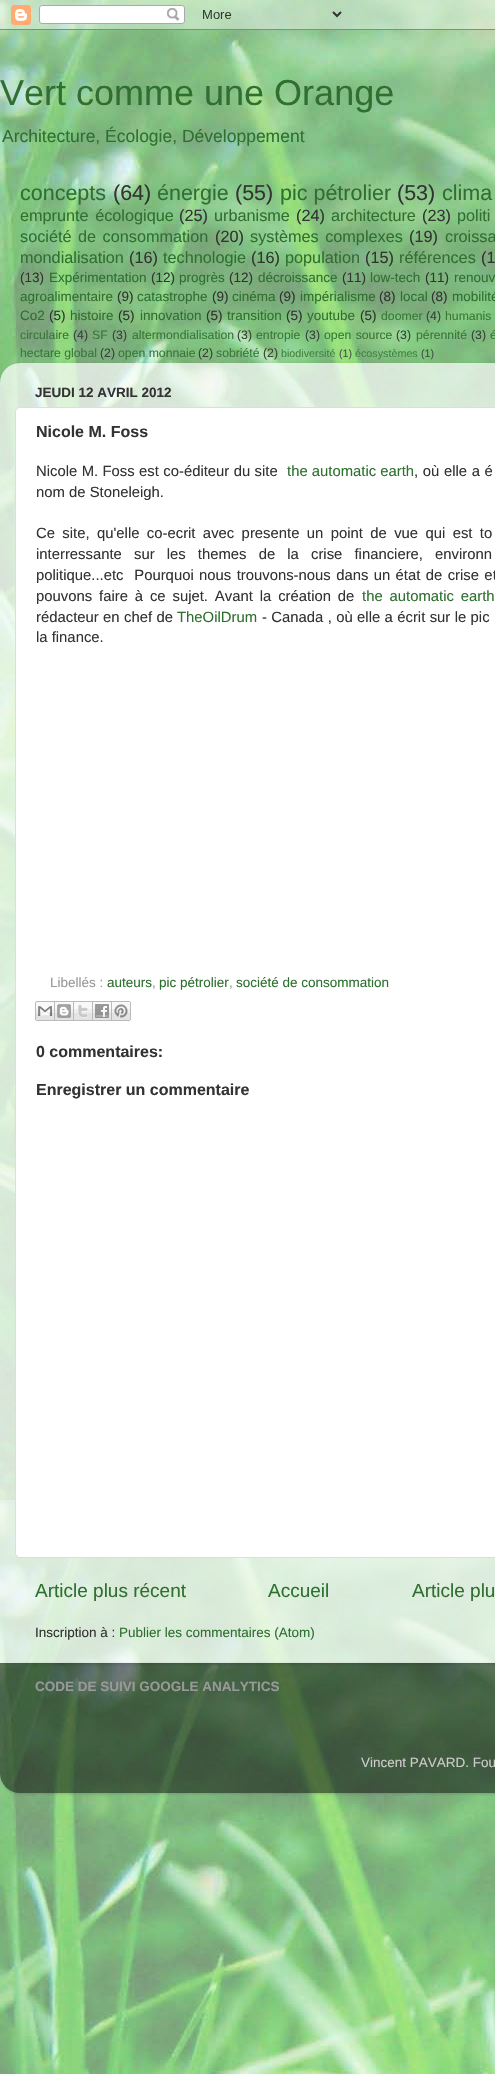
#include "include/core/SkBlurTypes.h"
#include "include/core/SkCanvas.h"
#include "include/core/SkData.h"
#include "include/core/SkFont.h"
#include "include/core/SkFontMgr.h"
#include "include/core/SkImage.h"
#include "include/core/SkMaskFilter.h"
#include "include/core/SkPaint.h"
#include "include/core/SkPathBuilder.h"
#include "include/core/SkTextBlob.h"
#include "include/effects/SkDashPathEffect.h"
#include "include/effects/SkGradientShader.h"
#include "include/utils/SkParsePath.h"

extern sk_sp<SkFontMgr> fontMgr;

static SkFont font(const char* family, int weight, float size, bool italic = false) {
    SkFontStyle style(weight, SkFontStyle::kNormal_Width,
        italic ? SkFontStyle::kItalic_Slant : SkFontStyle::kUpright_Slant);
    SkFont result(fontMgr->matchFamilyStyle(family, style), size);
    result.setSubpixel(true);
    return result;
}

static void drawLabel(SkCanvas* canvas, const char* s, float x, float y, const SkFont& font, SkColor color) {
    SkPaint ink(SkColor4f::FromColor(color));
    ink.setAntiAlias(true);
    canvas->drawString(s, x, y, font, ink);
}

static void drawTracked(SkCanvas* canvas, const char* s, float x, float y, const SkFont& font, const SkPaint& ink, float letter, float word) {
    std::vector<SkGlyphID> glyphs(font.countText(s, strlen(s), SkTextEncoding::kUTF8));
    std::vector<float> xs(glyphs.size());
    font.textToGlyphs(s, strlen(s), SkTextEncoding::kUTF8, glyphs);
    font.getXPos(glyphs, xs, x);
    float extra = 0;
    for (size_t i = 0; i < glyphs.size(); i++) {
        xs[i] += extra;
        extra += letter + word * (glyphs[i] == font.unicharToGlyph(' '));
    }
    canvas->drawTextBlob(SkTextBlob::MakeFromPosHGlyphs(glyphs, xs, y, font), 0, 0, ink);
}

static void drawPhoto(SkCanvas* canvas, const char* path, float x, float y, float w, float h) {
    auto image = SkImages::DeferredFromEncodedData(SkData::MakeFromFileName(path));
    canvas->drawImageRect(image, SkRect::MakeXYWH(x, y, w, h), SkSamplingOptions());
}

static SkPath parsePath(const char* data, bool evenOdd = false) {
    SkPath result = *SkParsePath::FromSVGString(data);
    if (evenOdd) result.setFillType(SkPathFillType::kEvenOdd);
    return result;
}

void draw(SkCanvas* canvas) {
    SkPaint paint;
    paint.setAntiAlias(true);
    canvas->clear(0xFFFFFFFF);
    drawPhoto(canvas, "assets/img1.png", 0, 0, 495, 2074);
    drawPhoto(canvas, "assets/img2.png", 0, 0, 495, 30);
    SkFont font1 = font("Liberation Sans", 400, 36);
    drawLabel(canvas, "Vert comme une Orange", 0, 105, font1, 0xFF2F7030);
    SkFont font2 = font("Liberation Sans", 400, 17.5f);
    drawLabel(canvas, "Architecture, Écologie, Développement", 2, 142, font2, 0xFF2F7030);
    SkFont font3 = font("Liberation Sans", 400, 21.5f);
    drawLabel(canvas, "concepts", 20, 200, font3, 0xFF2F7030);
    drawLabel(canvas, "(64)", 113, 200, font3, 0xFF333333);
    drawLabel(canvas, "énergie", 157, 200, font3, 0xFF2F7030);
    drawLabel(canvas, "(55)", 235, 200, font3, 0xFF333333);
    drawLabel(canvas, "pic pétrolier", 280, 200, font3, 0xFF2F7030);
    drawLabel(canvas, "(53)", 397, 200, font3, 0xFF333333);
    drawLabel(canvas, "clima", 442, 200, font3, 0xFF2F7030);
    SkFont font4 = font("Liberation Sans", 400, 16.25f);
    paint.setColor(0xFF2F7030);
    drawTracked(canvas, "emprunte écologique", 20, 221, font4, paint, 0, 2);
    drawLabel(canvas, "(25)", 179, 221, font4, 0xFF333333);
    drawLabel(canvas, "urbanisme", 214, 221, font4, 0xFF2F7030);
    drawLabel(canvas, "(24)", 296, 221, font4, 0xFF333333);
    drawLabel(canvas, "architecture", 331, 221, font4, 0xFF2F7030);
    drawLabel(canvas, "(23)", 422, 221, font4, 0xFF333333);
    drawLabel(canvas, "politi", 457, 221, font4, 0xFF2F7030);
    drawTracked(canvas, "société de consommation", 20, 242, font4, paint, 0, 2);
    drawLabel(canvas, "(20)", 215, 242, font4, 0xFF333333);
    drawTracked(canvas, "systèmes complexes", 250, 242, font4, paint, 0, 2);
    drawLabel(canvas, "(19)", 409, 242, font4, 0xFF333333);
    drawLabel(canvas, "croissa", 445, 242, font4, 0xFF2F7030);
    drawLabel(canvas, "mondialisation", 20, 263, font4, 0xFF2F7030);
    drawLabel(canvas, "(16)", 129, 263, font4, 0xFF333333);
    drawLabel(canvas, "technologie", 163, 263, font4, 0xFF2F7030);
    drawLabel(canvas, "(16)", 251, 263, font4, 0xFF333333);
    drawLabel(canvas, "population", 285, 263, font4, 0xFF2F7030);
    drawLabel(canvas, "(15)", 365, 263, font4, 0xFF333333);
    drawLabel(canvas, "références", 399, 263, font4, 0xFF2F7030);
    drawLabel(canvas, "(1", 481, 263, font4, 0xFF333333);
    SkFont font5 = font("Liberation Sans", 400, 13.5f);
    drawLabel(canvas, "(13)", 20, 282, font5, 0xFF333333);
    drawLabel(canvas, "Expérimentation", 49, 282, font5, 0xFF2F7030);
    drawLabel(canvas, "(12)", 151, 282, font5, 0xFF333333);
    drawLabel(canvas, "progrès", 179, 282, font5, 0xFF2F7030);
    drawLabel(canvas, "(12)", 229, 282, font5, 0xFF333333);
    drawLabel(canvas, "décroissance", 258, 282, font5, 0xFF2F7030);
    drawLabel(canvas, "(11)", 342, 282, font5, 0xFF333333);
    drawLabel(canvas, "low-tech", 370, 282, font5, 0xFF2F7030);
    drawLabel(canvas, "(11)", 425, 282, font5, 0xFF333333);
    drawLabel(canvas, "renouv", 454, 282, font5, 0xFF2F7030);
    drawLabel(canvas, "agroalimentaire", 20, 301, font5, 0xFF2F7030);
    drawLabel(canvas, "(9)", 117, 301, font5, 0xFF333333);
    drawLabel(canvas, "catastrophe", 137, 301, font5, 0xFF2F7030);
    drawLabel(canvas, "(9)", 212, 301, font5, 0xFF333333);
    drawLabel(canvas, "cinéma", 232, 301, font5, 0xFF2F7030);
    drawLabel(canvas, "(9)", 279, 301, font5, 0xFF333333);
    drawLabel(canvas, "impérialisme", 300, 301, font5, 0xFF2F7030);
    drawLabel(canvas, "(8)", 379, 301, font5, 0xFF333333);
    drawLabel(canvas, "local", 400, 301, font5, 0xFF2F7030);
    drawLabel(canvas, "(8)", 431, 301, font5, 0xFF333333);
    drawLabel(canvas, "mobilité", 452, 301, font5, 0xFF2F7030);
    drawLabel(canvas, "Co2", 20, 320, font5, 0xFF2F7030);
    drawLabel(canvas, "(5)", 49, 320, font5, 0xFF333333);
    drawLabel(canvas, "histoire", 70, 320, font5, 0xFF2F7030);
    drawLabel(canvas, "(5)", 118, 320, font5, 0xFF333333);
    drawLabel(canvas, "innovation", 140, 320, font5, 0xFF2F7030);
    drawLabel(canvas, "(5)", 206, 320, font5, 0xFF333333);
    drawLabel(canvas, "transition", 227, 320, font5, 0xFF2F7030);
    drawLabel(canvas, "(5)", 286, 320, font5, 0xFF333333);
    drawLabel(canvas, "youtube", 307, 320, font5, 0xFF2F7030);
    drawLabel(canvas, "(5)", 360, 320, font5, 0xFF333333);
    SkFont font6 = font("Liberation Sans", 400, 12.25f);
    drawLabel(canvas, "doomer", 381, 320, font6, 0xFF377738);
    drawLabel(canvas, "(4)", 426, 320, font6, 0xFF3A403A);
    drawLabel(canvas, "humanis", 445, 320, font6, 0xFF377738);
    drawLabel(canvas, "circulaire", 20, 339, font6, 0xFF377738);
    drawLabel(canvas, "(4)", 73, 339, font6, 0xFF3A403A);
    drawLabel(canvas, "SF", 92, 339, font6, 0xFF377738);
    drawLabel(canvas, "(3)", 112, 339, font6, 0xFF3A403A);
    drawLabel(canvas, "altermondialisation", 132, 339, font6, 0xFF377738);
    drawLabel(canvas, "(3)", 237, 339, font6, 0xFF3A403A);
    drawLabel(canvas, "entropie", 256, 339, font6, 0xFF377738);
    drawLabel(canvas, "(3)", 305, 339, font6, 0xFF3A403A);
    paint.setColor(0xFF377738);
    drawTracked(canvas, "open source", 324, 339, font6, paint, 0, 1);
    drawLabel(canvas, "(3)", 396, 339, font6, 0xFF3A403A);
    drawLabel(canvas, "pérennité", 416, 339, font6, 0xFF377738);
    drawLabel(canvas, "(3)", 471, 339, font6, 0xFF3A403A);
    drawTracked(canvas, "é", 490, 339, font6, paint, 0, 1);
    drawLabel(canvas, "hectare global", 20, 357, font6, 0xFF377738);
    drawLabel(canvas, "(2)", 100, 357, font6, 0xFF3A403A);
    drawLabel(canvas, "open monnaie", 118, 357, font6, 0xFF377738);
    drawLabel(canvas, "(2)", 198, 357, font6, 0xFF3A403A);
    drawLabel(canvas, "sobriété", 216, 357, font6, 0xFF377738);
    drawLabel(canvas, "(2)", 263, 357, font6, 0xFF3A403A);
    SkFont font7 = font("Liberation Sans", 400, 10.75f);
    drawLabel(canvas, "biodiversité", 281, 357, font7, 0xFF418241);
    drawLabel(canvas, "(1)", 339, 357, font7, 0xFF475642);
    drawLabel(canvas, "écosystèmes", 355, 357, font7, 0xFF418241);
    drawLabel(canvas, "(1)", 421, 357, font7, 0xFF424F42);
    canvas->save();
    canvas->clipPath(parsePath("M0 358H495V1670H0ZM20 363H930C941 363 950 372 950 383V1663H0V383C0 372 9 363 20 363Z", true), true);
    paint.setColor(0x26000000);
    paint.setMaskFilter(SkMaskFilter::MakeBlur(kNormal_SkBlurStyle, 1.5f));
    canvas->drawRoundRect(SkRect::MakeXYWH(0, 364, 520, 1300), 20, 20, paint);
    paint.setMaskFilter(nullptr);
    canvas->restore();
    drawPhoto(canvas, "assets/img3.png", 0, 363, 495, 1300);
    SkFont font8 = font("Liberation Sans", 700, 13.5f);
    drawLabel(canvas, "JEUDI 12 AVRIL 2012", 35, 397, font8, 0xFF333333);
    paint.setColor(0xFFFFFFFF);
    canvas->drawRoundRect(SkRect::MakeXYWH(15.5f, 407.5f, 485, 1150), 4.5f, 4.5f, paint);
    paint.setStroke(true);
    paint.setStrokeWidth(1);
    paint.setColor(0xFFDDDDDD);
    canvas->drawRoundRect(SkRect::MakeXYWH(15.5f, 407.5f, 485, 1150), 4.5f, 4.5f, paint);
    SkFont font9 = font("Liberation Sans", 700, 16);
    drawLabel(canvas, "Nicole M. Foss", 36, 437, font9, 0xFF333333);
    SkFont font10 = font("Liberation Sans", 400, 14.85f);
    paint.setStroke(false);
    paint.setColor(0xFF333333);
    drawTracked(canvas, "Nicole M. Foss est co-éditeur du site", 36, 476, font10, paint, 0, 0.25f);
    drawLabel(canvas, "the automatic earth", 287, 476, font10, 0xFF2F7030);
    drawTracked(canvas, ", où elle a é", 414, 476, font10, paint, 0, 0.5f);
    drawLabel(canvas, "nom de Stoneleigh.", 36, 497, font10, 0xFF333333);
    drawTracked(canvas, "Ce site, qu'elle co-ecrit avec presente un point de vue qui est to", 36, 538, font10, paint, 0, 3.25f);
    drawTracked(canvas, "interressante sur les themes de la crise financiere, environn", 36, 559, font10, paint, 0, 8);
    drawTracked(canvas, "politique...etc  Pourquoi nous trouvons-nous dans un état de crise et", 36, 580, font10, paint, 0, 1.25f);
    drawTracked(canvas, "pouvons faire à ce sujet. Avant la création de", 36, 601, font10, paint, 0, 2.75f);
    paint.setColor(0xFF2F7030);
    drawTracked(canvas, "the automatic earth", 362, 601, font10, paint, 0, 2.75f);
    paint.setColor(0xFF333333);
    drawTracked(canvas, "rédacteur en chef de", 36, 622, font10, paint, 0, 0.25f);
    drawLabel(canvas, "TheOilDrum", 177, 622, font10, 0xFF2F7030);
    drawTracked(canvas, "- Canada , où elle a écrit sur le pic", 262, 622, font10, paint, 0, 0.25f);
    drawLabel(canvas, "la finance.", 36, 642, font10, 0xFF333333);
    drawLabel(canvas, "Libellés :", 50, 987, font5, 0xFF999999);
    drawLabel(canvas, "auteurs", 107, 987, font5, 0xFF2F7030);
    drawLabel(canvas, ",", 152, 987, font5, 0xFF999999);
    drawLabel(canvas, "pic pétrolier", 159, 987, font5, 0xFF2F7030);
    drawLabel(canvas, ",", 229, 987, font5, 0xFF999999);
    drawLabel(canvas, "société de consommation", 236, 987, font5, 0xFF2F7030);
    drawPhoto(canvas, "assets/img4.png", 35, 1001, 20, 20);
    drawPhoto(canvas, "assets/img5.png", 55, 1001, 19, 20);
    drawPhoto(canvas, "assets/img6.png", 74, 1001, 19, 20);
    drawPhoto(canvas, "assets/img7.png", 93, 1001, 19, 20);
    drawPhoto(canvas, "assets/img8.png", 112, 1001, 19, 20);
    drawLabel(canvas, "0 commentaires:", 36, 1057, font9, 0xFF333333);
    drawLabel(canvas, "Enregistrer un commentaire", 36, 1095, font9, 0xFF333333);
    SkFont font11 = font("Liberation Sans", 400, 19);
    drawLabel(canvas, "Article plus récent", 35, 1597, font11, 0xFF2F7030);
    drawLabel(canvas, "Accueil", 268, 1597, font11, 0xFF2F7030);
    drawLabel(canvas, "Article plu", 412, 1597, font11, 0xFF2F7030);
    drawLabel(canvas, "Inscription à :", 35, 1637, font5, 0xFF333333);
    drawLabel(canvas, "Publier les commentaires (Atom)", 119, 1637, font5, 0xFF2F7030);
    canvas->save();
    canvas->clipPath(parsePath("M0 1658H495V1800H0ZM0 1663H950V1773C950 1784 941 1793 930 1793H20C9 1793 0 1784 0 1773Z", true), true);
    paint.setColor(0x26000000);
    paint.setMaskFilter(SkMaskFilter::MakeBlur(kNormal_SkBlurStyle, 1.5f));
    canvas->drawRoundRect(SkRect::MakeXYWH(0, 1664, 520, 130), 20, 20, paint);
    paint.setMaskFilter(nullptr);
    canvas->restore();
    drawPhoto(canvas, "assets/img9.png", 0, 1663, 495, 130);
    drawLabel(canvas, "CODE DE SUIVI GOOGLE ANALYTICS", 35, 1691, font8, 0xFF999999);
    drawLabel(canvas, "Vincent PAVARD. Fou", 361, 1767, font5, 0xFFCCCCCC);
}
